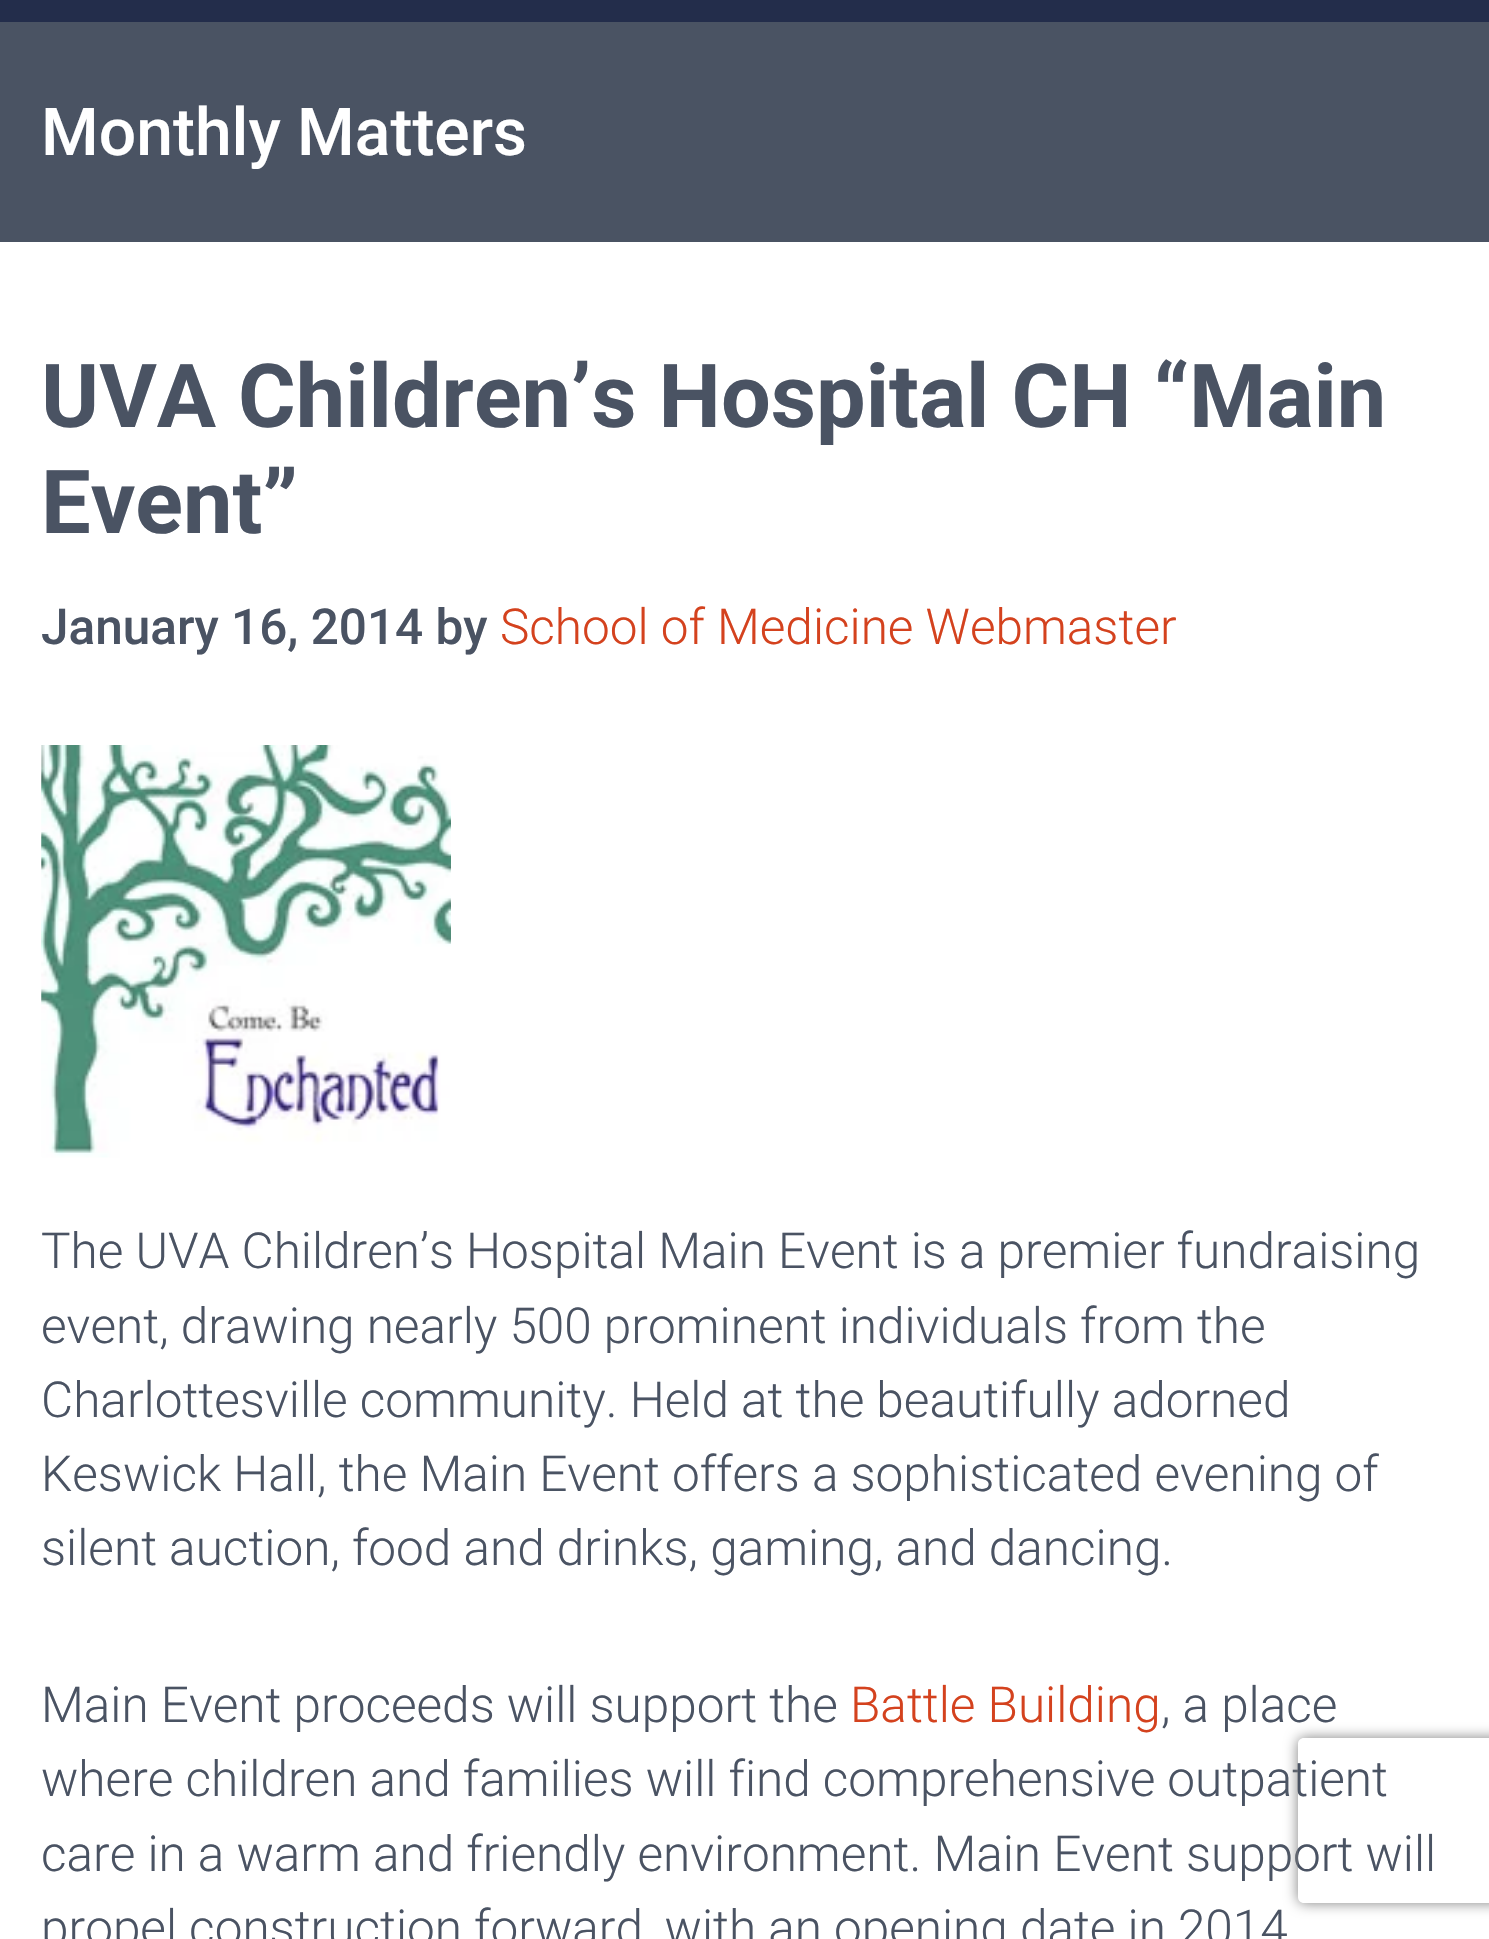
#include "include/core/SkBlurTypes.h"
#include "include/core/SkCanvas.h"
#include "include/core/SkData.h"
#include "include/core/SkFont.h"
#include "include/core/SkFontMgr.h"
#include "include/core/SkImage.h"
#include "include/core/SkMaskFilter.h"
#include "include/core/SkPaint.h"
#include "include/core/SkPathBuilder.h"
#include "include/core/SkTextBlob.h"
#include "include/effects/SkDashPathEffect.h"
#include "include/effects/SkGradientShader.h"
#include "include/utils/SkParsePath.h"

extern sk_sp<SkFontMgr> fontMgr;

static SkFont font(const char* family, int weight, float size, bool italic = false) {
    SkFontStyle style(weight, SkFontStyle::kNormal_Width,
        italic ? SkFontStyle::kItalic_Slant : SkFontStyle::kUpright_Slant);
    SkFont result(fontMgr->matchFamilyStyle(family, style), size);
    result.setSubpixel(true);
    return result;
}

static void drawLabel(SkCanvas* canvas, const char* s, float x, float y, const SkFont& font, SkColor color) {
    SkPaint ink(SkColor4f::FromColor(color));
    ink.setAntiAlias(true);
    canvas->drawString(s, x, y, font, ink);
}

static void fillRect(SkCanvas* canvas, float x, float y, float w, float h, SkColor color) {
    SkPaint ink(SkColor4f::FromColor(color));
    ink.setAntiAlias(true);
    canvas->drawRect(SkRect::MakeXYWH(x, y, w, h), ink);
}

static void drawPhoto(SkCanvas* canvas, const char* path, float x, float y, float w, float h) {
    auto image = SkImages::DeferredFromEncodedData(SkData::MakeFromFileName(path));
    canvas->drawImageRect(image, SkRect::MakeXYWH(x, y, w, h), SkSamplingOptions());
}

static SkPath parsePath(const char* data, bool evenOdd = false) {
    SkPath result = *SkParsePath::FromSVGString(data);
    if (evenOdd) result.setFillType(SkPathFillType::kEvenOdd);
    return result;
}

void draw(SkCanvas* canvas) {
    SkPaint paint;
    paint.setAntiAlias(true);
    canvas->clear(0xFFFFFFFF);
    fillRect(canvas, 0, 0, 1489, 22, 0xFF232D4B);
    fillRect(canvas, 0, 22, 1489, 220, 0xFF4A5363);
    SkFont font1 = font("Roboto", 500, 66);
    drawLabel(canvas, "Monthly Matters", 41, 155, font1, 0xFFFFFFFF);
    SkFont font2 = font("Roboto", 700, 88.25f);
    drawLabel(canvas, "UVA Children’s Hospital CH “Main", 41, 427, font2, 0xFF4A5363);
    drawLabel(canvas, "Event”", 41, 533, font2, 0xFF4A5363);
    SkFont font3 = font("Roboto", 500, 49.5f);
    drawLabel(canvas, "January 16, 2014 by", 41, 644, font3, 0xFF4A5363);
    SkFont font4 = font("Roboto", 300, 49.5f);
    drawLabel(canvas, "School of Medicine Webmaster", 500, 644, font4, 0xFFD4421E);
    drawPhoto(canvas, "assets/img1.png", 41, 745, 410, 413);
    drawLabel(canvas, "The UVA Children’s Hospital Main Event is a premier fundraising", 41, 1268, font4, 0xFF4A5363);
    drawLabel(canvas, "event, drawing nearly 500 prominent individuals from the", 41, 1343, font4, 0xFF4A5363);
    drawLabel(canvas, "Charlottesville community. Held at the beautifully adorned", 41, 1417, font4, 0xFF4A5363);
    drawLabel(canvas, "Keswick Hall, the Main Event offers a sophisticated evening of", 41, 1491, font4, 0xFF4A5363);
    drawLabel(canvas, "silent auction, food and drinks, gaming, and dancing.", 41, 1565, font4, 0xFF4A5363);
    drawLabel(canvas, "Main Event proceeds will support the", 41, 1722, font4, 0xFF4A5363);
    drawLabel(canvas, "Battle Building", 850, 1722, font4, 0xFFD4421E);
    drawLabel(canvas, ", a place", 1161, 1722, font4, 0xFF4A5363);
    drawLabel(canvas, "where children and families will find comprehensive outpatient", 41, 1796, font4, 0xFF4A5363);
    drawLabel(canvas, "care in a warm and friendly environment. Main Event support will", 41, 1871, font4, 0xFF4A5363);
    drawLabel(canvas, "propel construction forward, with an opening date in 2014", 41, 1945, font4, 0xFF4A5363);
    canvas->save();
    canvas->clipPath(parsePath("M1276 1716H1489V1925H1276ZM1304 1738H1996C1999.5 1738 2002 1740.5 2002 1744V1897C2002 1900.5 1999.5 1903 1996 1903H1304C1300.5 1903 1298 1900.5 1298 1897V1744C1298 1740.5 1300.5 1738 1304 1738Z", true), true);
    paint.setColor(0xFF808080);
    paint.setMaskFilter(SkMaskFilter::MakeBlur(kNormal_SkBlurStyle, 7));
    canvas->drawRoundRect(SkRect::MakeXYWH(1298, 1738, 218, 165), 6, 6, paint);
    paint.setMaskFilter(nullptr);
    canvas->restore();
}
